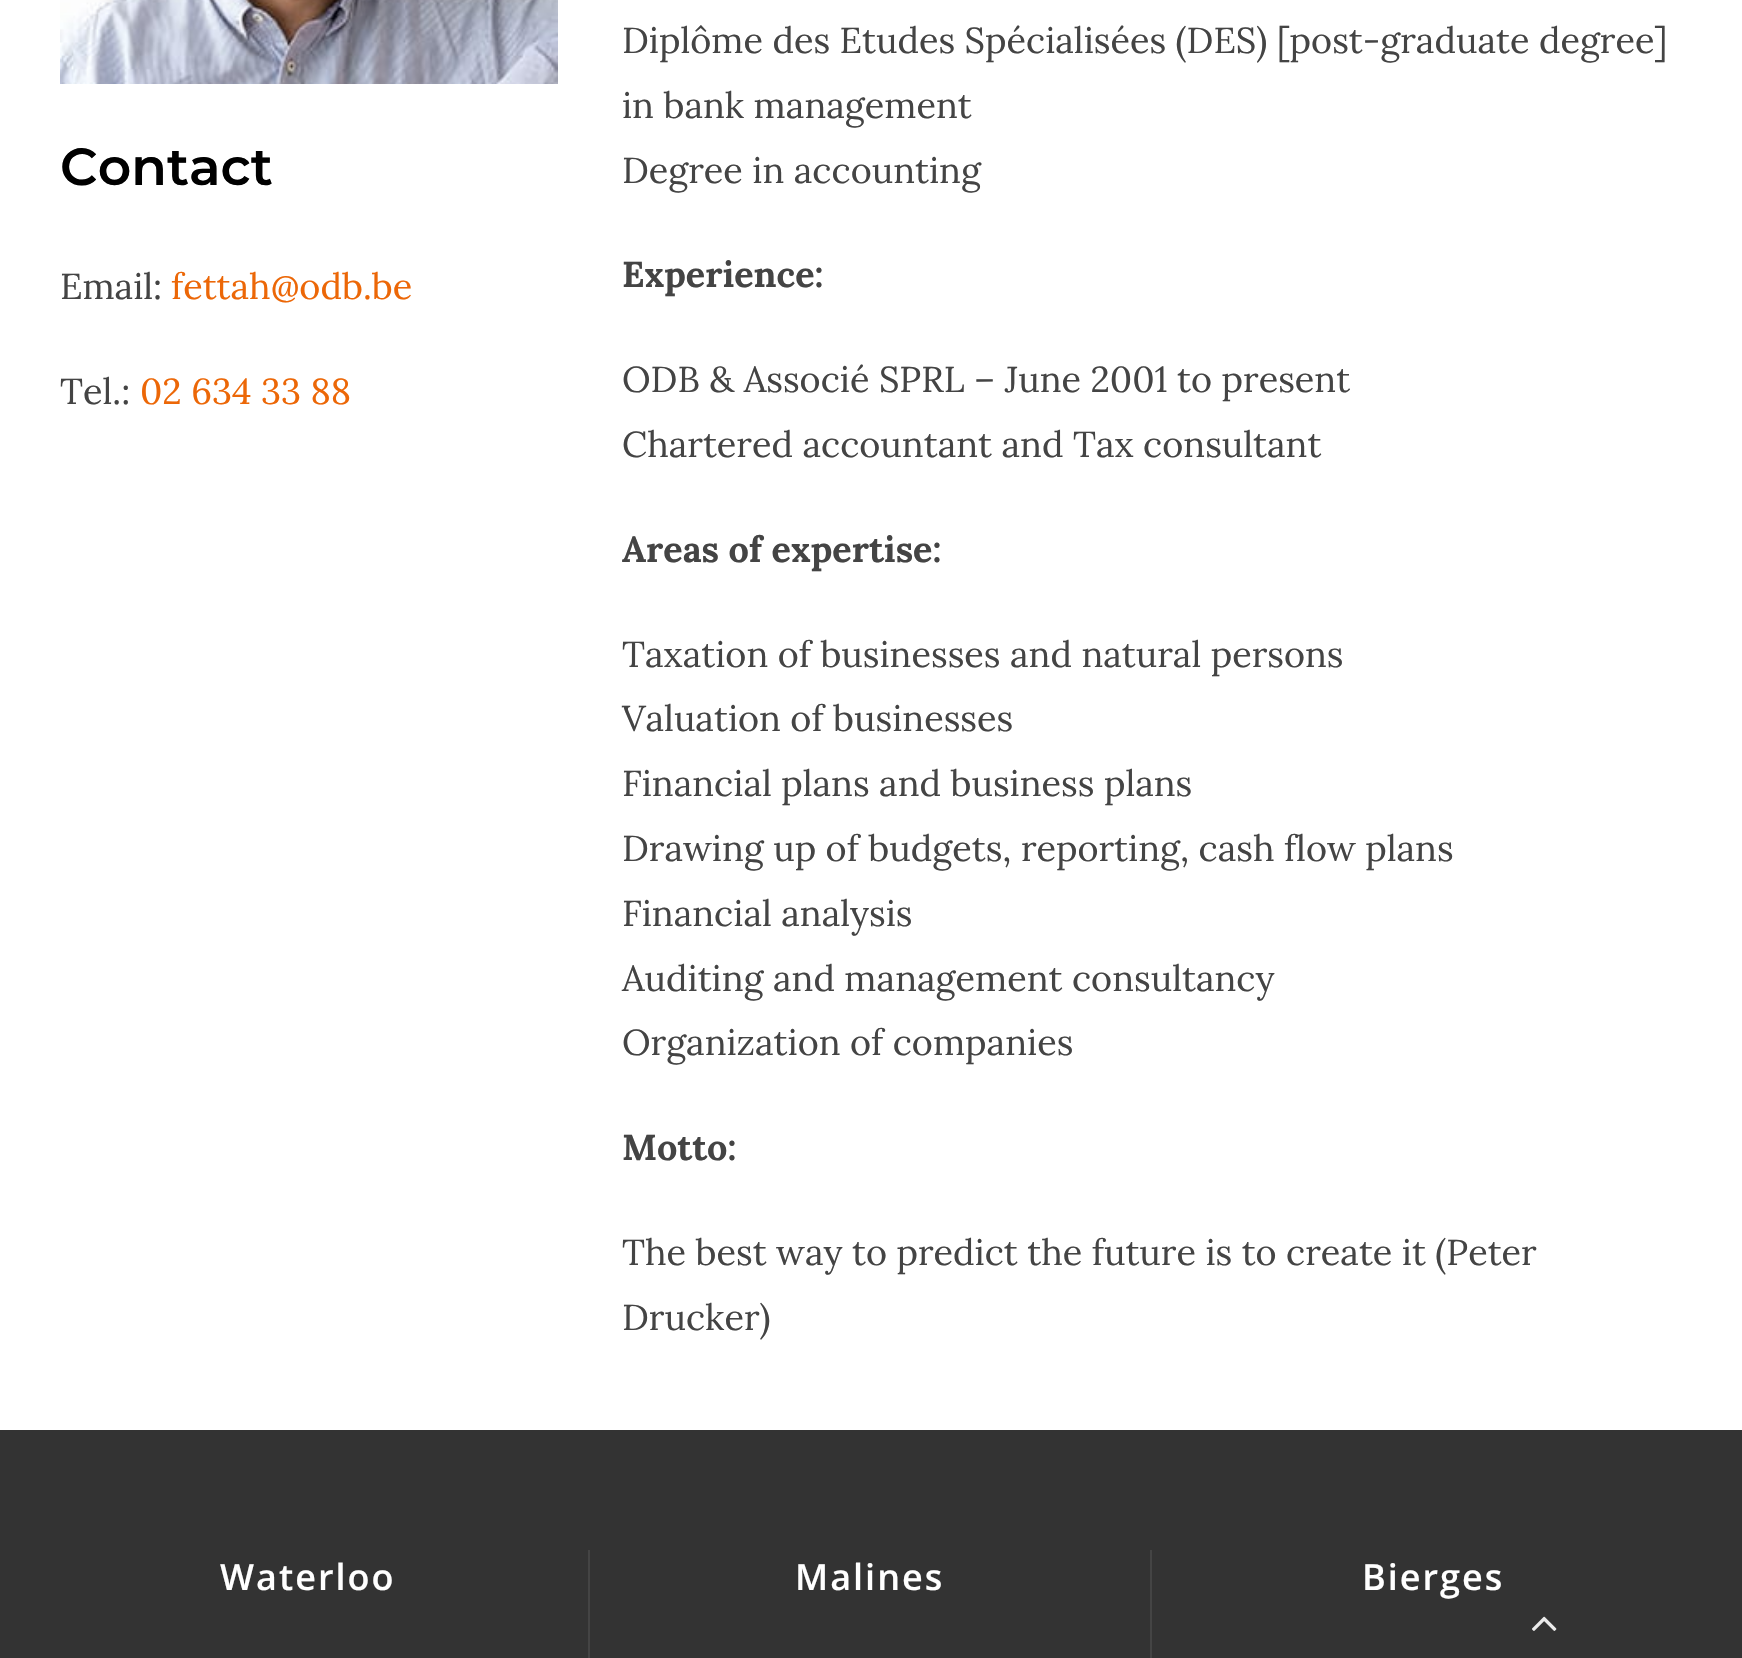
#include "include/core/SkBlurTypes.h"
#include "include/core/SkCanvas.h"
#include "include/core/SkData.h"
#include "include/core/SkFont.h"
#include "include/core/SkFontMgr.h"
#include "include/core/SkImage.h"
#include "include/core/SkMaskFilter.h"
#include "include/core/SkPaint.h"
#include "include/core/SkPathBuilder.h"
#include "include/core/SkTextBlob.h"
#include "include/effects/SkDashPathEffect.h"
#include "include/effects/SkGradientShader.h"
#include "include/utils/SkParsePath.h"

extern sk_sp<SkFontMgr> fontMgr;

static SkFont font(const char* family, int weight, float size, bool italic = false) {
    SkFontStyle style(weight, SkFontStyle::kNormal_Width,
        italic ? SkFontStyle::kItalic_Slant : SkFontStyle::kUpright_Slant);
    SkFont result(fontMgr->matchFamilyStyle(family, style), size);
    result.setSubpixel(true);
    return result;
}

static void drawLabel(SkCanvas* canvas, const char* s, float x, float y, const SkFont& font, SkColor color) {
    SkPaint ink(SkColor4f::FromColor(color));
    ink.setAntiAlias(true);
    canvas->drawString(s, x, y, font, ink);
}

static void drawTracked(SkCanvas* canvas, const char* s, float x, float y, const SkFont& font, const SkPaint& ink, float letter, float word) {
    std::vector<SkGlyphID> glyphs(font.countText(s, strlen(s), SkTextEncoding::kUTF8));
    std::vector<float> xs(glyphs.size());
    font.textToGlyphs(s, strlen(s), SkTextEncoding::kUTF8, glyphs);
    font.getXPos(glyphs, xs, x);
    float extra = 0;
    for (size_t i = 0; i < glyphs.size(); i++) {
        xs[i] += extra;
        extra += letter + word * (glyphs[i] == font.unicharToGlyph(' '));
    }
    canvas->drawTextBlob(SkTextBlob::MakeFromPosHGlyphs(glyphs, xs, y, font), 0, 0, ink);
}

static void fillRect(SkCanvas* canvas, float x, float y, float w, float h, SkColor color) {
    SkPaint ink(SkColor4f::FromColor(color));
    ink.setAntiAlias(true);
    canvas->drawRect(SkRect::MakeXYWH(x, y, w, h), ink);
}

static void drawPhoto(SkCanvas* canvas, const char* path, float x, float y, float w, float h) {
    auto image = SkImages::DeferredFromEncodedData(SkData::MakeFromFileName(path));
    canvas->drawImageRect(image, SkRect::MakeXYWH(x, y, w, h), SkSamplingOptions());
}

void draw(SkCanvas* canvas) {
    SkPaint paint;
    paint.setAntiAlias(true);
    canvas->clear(0xFFFFFFFF);
    drawPhoto(canvas, "assets/img1.png", 60, 0, 498, 84);
    SkFont font1 = font("Montserrat", 600, 52);
    drawLabel(canvas, "Contact", 60, 185, font1, 0xFF000000);
    SkFont font2 = font("Lora", 400, 36);
    drawLabel(canvas, "Email:", 60, 299, font2, 0xFF444444);
    drawLabel(canvas, "fettah@odb.be", 171, 299, font2, 0xFFEC6707);
    drawLabel(canvas, "Tel.:", 60, 404, font2, 0xFF444444);
    drawLabel(canvas, "02 634 33 88", 140, 404, font2, 0xFFEC6707);
    drawLabel(canvas, "Diplôme des Etudes Spécialisées (DES) [post-graduate degree]", 622, 53, font2, 0xFF444444);
    drawLabel(canvas, "in bank management", 622, 118, font2, 0xFF444444);
    drawLabel(canvas, "Degree in accounting", 622, 183, font2, 0xFF444444);
    SkFont font3 = font("Lora", 700, 36);
    drawLabel(canvas, "Experience:", 622, 287, font3, 0xFF444444);
    drawLabel(canvas, "ODB & Associé SPRL – June 2001 to present", 622, 392, font2, 0xFF444444);
    drawLabel(canvas, "Chartered accountant and Tax consultant", 622, 457, font2, 0xFF444444);
    drawLabel(canvas, "Areas of expertise:", 622, 562, font3, 0xFF444444);
    drawLabel(canvas, "Taxation of businesses and natural persons", 622, 667, font2, 0xFF444444);
    drawLabel(canvas, "Valuation of businesses", 622, 731, font2, 0xFF444444);
    drawLabel(canvas, "Financial plans and business plans", 622, 796, font2, 0xFF444444);
    drawLabel(canvas, "Drawing up of budgets, reporting, cash flow plans", 622, 861, font2, 0xFF444444);
    drawLabel(canvas, "Financial analysis", 622, 926, font2, 0xFF444444);
    drawLabel(canvas, "Auditing and management consultancy", 622, 991, font2, 0xFF444444);
    drawLabel(canvas, "Organization of companies", 622, 1055, font2, 0xFF444444);
    drawLabel(canvas, "Motto:", 622, 1160, font3, 0xFF444444);
    drawLabel(canvas, "The best way to predict the future is to create it (Peter", 622, 1265, font2, 0xFF444444);
    drawLabel(canvas, "Drucker)", 622, 1330, font2, 0xFF444444);
    fillRect(canvas, 0, 1430, 1742, 228, 0xFF333333);
    fillRect(canvas, 588, 1550, 2, 108, 0xFF444444);
    SkFont font4 = font("Open Sans", 600, 36);
    paint.setColor(0xFFFFFFFF);
    drawTracked(canvas, "Waterloo", 220, 1590, font4, paint, 2, 0);
    fillRect(canvas, 1150, 1550, 2, 108, 0xFF444444);
    drawTracked(canvas, "Malines", 795, 1590, font4, paint, 2, 0);
    drawTracked(canvas, "Bierges", 1362, 1590, font4, paint, 2, 0);
    drawPhoto(canvas, "assets/img2.png", 1532, 1616, 25, 15);
}
